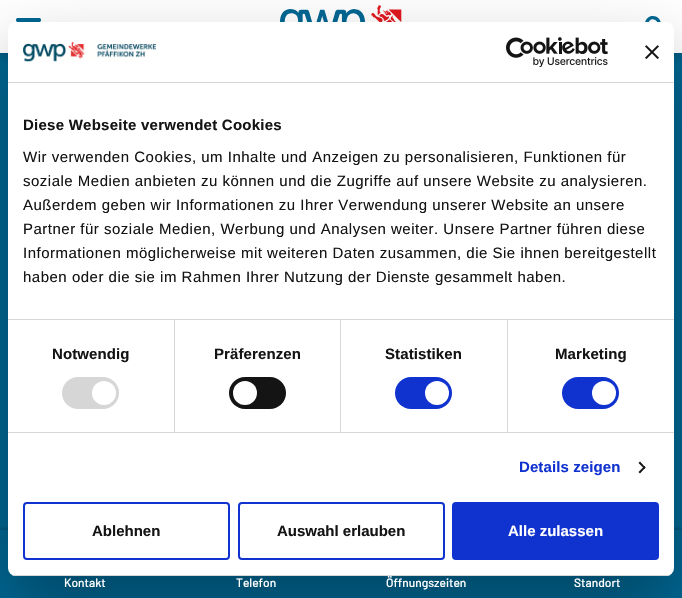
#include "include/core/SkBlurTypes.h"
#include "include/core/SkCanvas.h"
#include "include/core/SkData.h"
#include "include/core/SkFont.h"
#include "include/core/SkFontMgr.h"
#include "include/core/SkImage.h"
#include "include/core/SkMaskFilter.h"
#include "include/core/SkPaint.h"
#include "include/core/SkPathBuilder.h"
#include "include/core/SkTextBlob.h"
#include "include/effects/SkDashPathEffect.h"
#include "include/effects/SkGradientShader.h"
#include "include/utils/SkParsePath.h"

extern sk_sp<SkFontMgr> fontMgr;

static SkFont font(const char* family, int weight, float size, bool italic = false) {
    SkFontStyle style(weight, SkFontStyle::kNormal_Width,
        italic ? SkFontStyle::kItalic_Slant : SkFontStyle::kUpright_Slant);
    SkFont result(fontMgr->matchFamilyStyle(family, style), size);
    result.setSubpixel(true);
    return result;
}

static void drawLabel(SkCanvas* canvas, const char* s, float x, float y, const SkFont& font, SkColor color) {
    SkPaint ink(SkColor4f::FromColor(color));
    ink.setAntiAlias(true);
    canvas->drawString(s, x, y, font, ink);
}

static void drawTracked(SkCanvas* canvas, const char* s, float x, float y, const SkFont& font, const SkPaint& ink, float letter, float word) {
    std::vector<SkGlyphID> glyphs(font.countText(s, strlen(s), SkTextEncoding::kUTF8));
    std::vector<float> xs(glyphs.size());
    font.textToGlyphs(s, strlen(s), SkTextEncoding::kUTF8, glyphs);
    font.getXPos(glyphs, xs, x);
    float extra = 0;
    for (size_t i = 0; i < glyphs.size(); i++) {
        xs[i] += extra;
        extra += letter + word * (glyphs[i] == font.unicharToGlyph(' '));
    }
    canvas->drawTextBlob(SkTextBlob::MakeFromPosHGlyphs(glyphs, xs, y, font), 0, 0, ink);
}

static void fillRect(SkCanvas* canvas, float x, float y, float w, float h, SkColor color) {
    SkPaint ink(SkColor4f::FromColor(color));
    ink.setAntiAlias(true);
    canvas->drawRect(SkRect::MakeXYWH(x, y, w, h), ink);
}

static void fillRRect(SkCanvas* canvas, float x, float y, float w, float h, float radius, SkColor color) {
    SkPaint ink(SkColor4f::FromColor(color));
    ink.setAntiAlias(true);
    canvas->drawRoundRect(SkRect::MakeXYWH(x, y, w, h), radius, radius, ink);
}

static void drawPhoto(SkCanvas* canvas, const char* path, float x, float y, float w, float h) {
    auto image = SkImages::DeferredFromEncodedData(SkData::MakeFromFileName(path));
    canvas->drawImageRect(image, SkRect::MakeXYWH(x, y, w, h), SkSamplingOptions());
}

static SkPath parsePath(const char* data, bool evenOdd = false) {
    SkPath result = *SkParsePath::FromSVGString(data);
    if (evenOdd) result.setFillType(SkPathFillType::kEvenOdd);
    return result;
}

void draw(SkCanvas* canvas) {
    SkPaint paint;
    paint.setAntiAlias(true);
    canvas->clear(0xFF006793);
    paint.setColor(0x29000000);
    paint.setMaskFilter(SkMaskFilter::MakeBlur(kNormal_SkBlurStyle, 6));
    canvas->drawRect(SkRect::MakeXYWH(0, 3, 682, 50), paint);
    paint.setMaskFilter(nullptr);
    paint.setMaskFilter(SkMaskFilter::MakeBlur(kNormal_SkBlurStyle, 6));
    canvas->drawRect(SkRect::MakeXYWH(0, 3, 682, 53), paint);
    paint.setMaskFilter(nullptr);
    fillRect(canvas, 0, 0, 682, 53, 0xFFFFFFFF);
    drawPhoto(canvas, "assets/img1.png", 16, 18, 25, 4);
    drawPhoto(canvas, "assets/img2.png", 280, 5, 122, 17);
    drawPhoto(canvas, "assets/img3.png", 645, 16, 16, 6);
    paint.setColor(0x4D000000);
    paint.setMaskFilter(SkMaskFilter::MakeBlur(kNormal_SkBlurStyle, 34));
    canvas->drawRoundRect(SkRect::MakeXYWH(8, 54, 666, 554), 8, 8, paint);
    paint.setMaskFilter(nullptr);
    canvas->save();
    canvas->clipRect(SkRect::MakeXYWH(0, 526, 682, 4));
    paint.setColor(0x29000000);
    paint.setMaskFilter(SkMaskFilter::MakeBlur(kNormal_SkBlurStyle, 1.5f));
    canvas->drawRect(SkRect::MakeXYWH(0, 528, 682, 68), paint);
    paint.setMaskFilter(nullptr);
    canvas->restore();
    fillRRect(canvas, 8, 22, 666, 554, 8, 0xFFFFFFFF);
    fillRect(canvas, 8, 82, 666, 1, 0xFFD6D6D6);
    drawPhoto(canvas, "assets/img4.png", 23, 41, 134, 21);
    drawPhoto(canvas, "assets/img5.png", 506, 37, 102, 30);
    drawPhoto(canvas, "assets/img6.png", 645, 45, 14, 14);
    fillRect(canvas, 8, 319, 666, 1, 0xFFD6D6D6);
    SkFont font1 = font("Liberation Sans", 700, 15);
    paint.setColor(0xFF141414);
    drawTracked(canvas, "Diese Webseite verwendet Cookies", 23, 130, font1, paint, 0.25f, 0);
    SkFont font2 = font("Liberation Sans", 400, 15);
    drawTracked(canvas, "Wir verwenden Cookies, um Inhalte und Anzeigen zu personalisieren, Funktionen für", 23, 162, font2, paint, 0.5f, 0);
    drawTracked(canvas, "soziale Medien anbieten zu können und die Zugriffe auf unsere Website zu analysieren.", 23, 186, font2, paint, 0.5f, 0);
    drawTracked(canvas, "Außerdem geben wir Informationen zu Ihrer Verwendung unserer Website an unsere", 23, 210, font2, paint, 0.5f, 0);
    drawTracked(canvas, "Partner für soziale Medien, Werbung und Analysen weiter. Unsere Partner führen diese", 23, 234, font2, paint, 0.5f, 0);
    drawTracked(canvas, "Informationen möglicherweise mit weiteren Daten zusammen, die Sie ihnen bereitgestellt", 23, 258, font2, paint, 0.5f, 0);
    drawTracked(canvas, "haben oder die sie im Rahmen Ihrer Nutzung der Dienste gesammelt haben.", 23, 282, font2, paint, 0.5f, 0);
    fillRect(canvas, 8, 432, 666, 1, 0xFFD6D6D6);
    fillRect(canvas, 174, 320, 1, 112, 0xFFD6D6D6);
    drawTracked(canvas, "Notwendig", 52, 359, font1, paint, 0.1f, 0);
    fillRRect(canvas, 62, 377, 57, 32, 16, 0xFFD6D6D6);
    paint.setColor(0xFFFFFFFF);
    canvas->drawCircle(104, 393, 12, paint);
    fillRect(canvas, 340, 320, 1, 112, 0xFFD6D6D6);
    paint.setColor(0xFF141414);
    drawTracked(canvas, "Präferenzen", 214, 359, font1, paint, 0.1f, 0);
    fillRRect(canvas, 229, 377, 57, 32, 16, 0xFF141414);
    paint.setColor(0xFFFFFFFF);
    canvas->drawCircle(245, 393, 12, paint);
    fillRect(canvas, 507, 320, 1, 112, 0xFFD6D6D6);
    paint.setColor(0xFF141414);
    drawTracked(canvas, "Statistiken", 385, 359, font1, paint, 0.1f, 0);
    fillRRect(canvas, 395, 377, 57, 32, 16, 0xFF1032CF);
    paint.setColor(0xFFFFFFFF);
    canvas->drawCircle(437, 393, 12, paint);
    paint.setColor(0xFF141414);
    drawTracked(canvas, "Marketing", 555, 359, font1, paint, 0.1f, 0);
    fillRRect(canvas, 562, 377, 57, 32, 16, 0xFF1032CF);
    paint.setColor(0xFFFFFFFF);
    canvas->drawCircle(604, 393, 12, paint);
    paint.setColor(0xFF1032CF);
    drawTracked(canvas, "Details zeigen", 519, 472, font1, paint, 0.1f, 0);
    paint.setColor(0xFF141414);
    canvas->drawPath(parsePath("M640 461.5L645.5 467.5L644.5 469L638.5 463Z"), paint);
    canvas->drawPath(parsePath("M644.5 466L645.5 467.5L640 473.5L638.5 472Z"), paint);
    canvas->save();
    canvas->clipPath(parsePath("M16 22H666C670.5 22 674 25.5 674 30V568C674 572.5 670.5 576 666 576H16C11.5 576 8 572.5 8 568V30C8 25.5 11.5 22 16 22Z"), true);
    fillRect(canvas, 8, 575, 666, 1, 0xFFD6D6D6);
    canvas->restore();
    paint.setStroke(true);
    paint.setStrokeWidth(2);
    paint.setColor(0xFF1032CF);
    canvas->drawRoundRect(SkRect::MakeXYWH(24, 503, 205, 56), 3, 3, paint);
    drawLabel(canvas, "Ablehnen", 92, 536, font1, 0xFF141414);
    canvas->drawRoundRect(SkRect::MakeXYWH(239, 503, 205, 56), 3, 3, paint);
    drawLabel(canvas, "Auswahl erlauben", 277, 536, font1, 0xFF141414);
    paint.setStroke(false);
    canvas->drawRoundRect(SkRect::MakeXYWH(453, 503, 205, 56), 3, 3, paint);
    paint.setStroke(true);
    canvas->drawRoundRect(SkRect::MakeXYWH(453, 503, 205, 56), 3, 3, paint);
    drawLabel(canvas, "Alle zulassen", 508, 536, font1, 0xFFFFFFFF);
    SkFont font3 = font("Barlow", 500, 12);
    drawLabel(canvas, "Kontakt", 64, 587, font3, 0xFFFFFFFF);
    drawLabel(canvas, "Telefon", 236, 587, font3, 0xFFFFFFFF);
    drawLabel(canvas, "Öffnungszeiten", 386, 587, font3, 0xFFFFFFFF);
    drawLabel(canvas, "Standort", 574, 587, font3, 0xFFFFFFFF);
}
